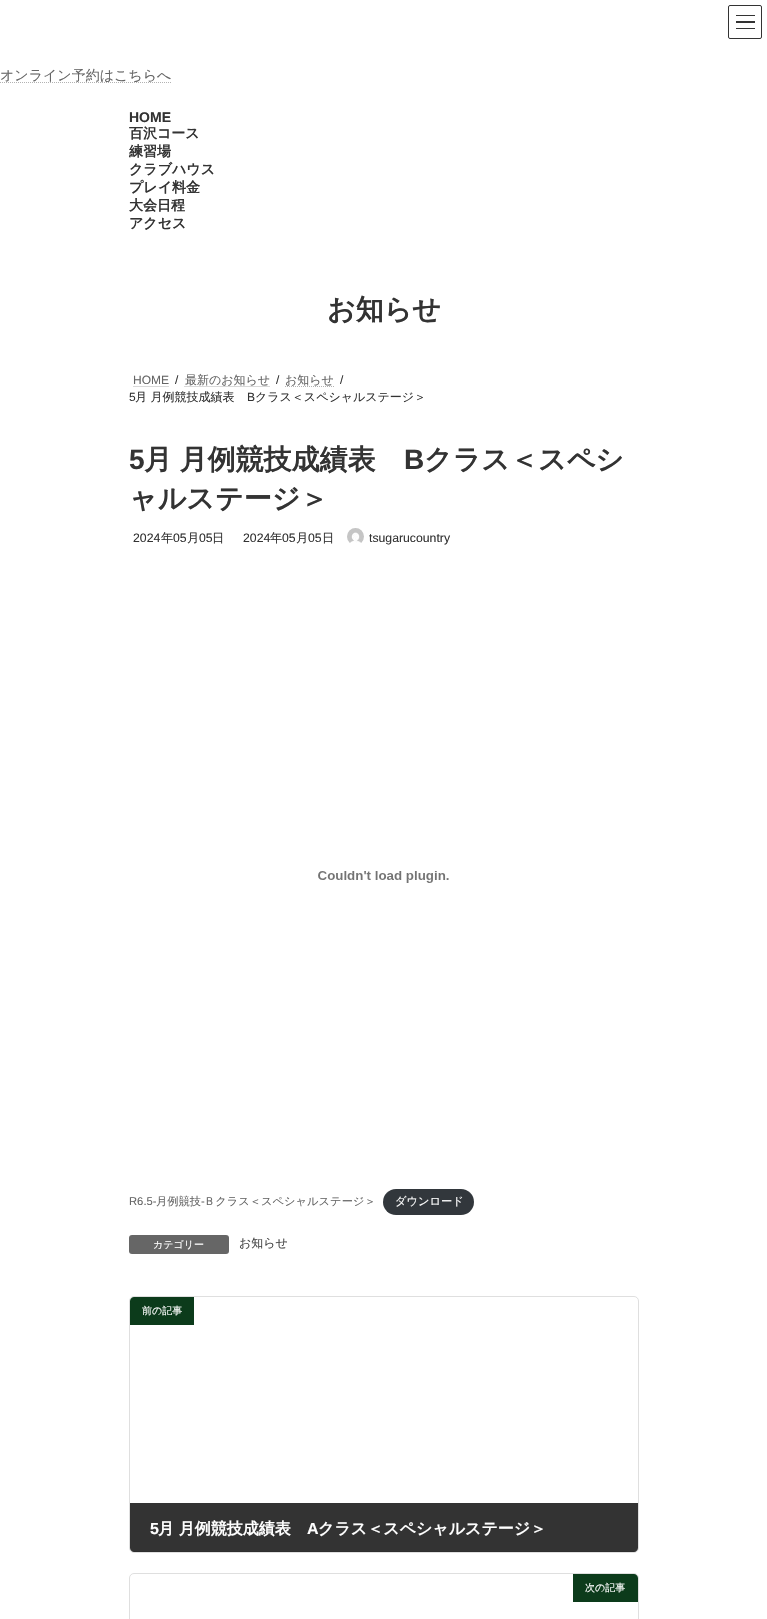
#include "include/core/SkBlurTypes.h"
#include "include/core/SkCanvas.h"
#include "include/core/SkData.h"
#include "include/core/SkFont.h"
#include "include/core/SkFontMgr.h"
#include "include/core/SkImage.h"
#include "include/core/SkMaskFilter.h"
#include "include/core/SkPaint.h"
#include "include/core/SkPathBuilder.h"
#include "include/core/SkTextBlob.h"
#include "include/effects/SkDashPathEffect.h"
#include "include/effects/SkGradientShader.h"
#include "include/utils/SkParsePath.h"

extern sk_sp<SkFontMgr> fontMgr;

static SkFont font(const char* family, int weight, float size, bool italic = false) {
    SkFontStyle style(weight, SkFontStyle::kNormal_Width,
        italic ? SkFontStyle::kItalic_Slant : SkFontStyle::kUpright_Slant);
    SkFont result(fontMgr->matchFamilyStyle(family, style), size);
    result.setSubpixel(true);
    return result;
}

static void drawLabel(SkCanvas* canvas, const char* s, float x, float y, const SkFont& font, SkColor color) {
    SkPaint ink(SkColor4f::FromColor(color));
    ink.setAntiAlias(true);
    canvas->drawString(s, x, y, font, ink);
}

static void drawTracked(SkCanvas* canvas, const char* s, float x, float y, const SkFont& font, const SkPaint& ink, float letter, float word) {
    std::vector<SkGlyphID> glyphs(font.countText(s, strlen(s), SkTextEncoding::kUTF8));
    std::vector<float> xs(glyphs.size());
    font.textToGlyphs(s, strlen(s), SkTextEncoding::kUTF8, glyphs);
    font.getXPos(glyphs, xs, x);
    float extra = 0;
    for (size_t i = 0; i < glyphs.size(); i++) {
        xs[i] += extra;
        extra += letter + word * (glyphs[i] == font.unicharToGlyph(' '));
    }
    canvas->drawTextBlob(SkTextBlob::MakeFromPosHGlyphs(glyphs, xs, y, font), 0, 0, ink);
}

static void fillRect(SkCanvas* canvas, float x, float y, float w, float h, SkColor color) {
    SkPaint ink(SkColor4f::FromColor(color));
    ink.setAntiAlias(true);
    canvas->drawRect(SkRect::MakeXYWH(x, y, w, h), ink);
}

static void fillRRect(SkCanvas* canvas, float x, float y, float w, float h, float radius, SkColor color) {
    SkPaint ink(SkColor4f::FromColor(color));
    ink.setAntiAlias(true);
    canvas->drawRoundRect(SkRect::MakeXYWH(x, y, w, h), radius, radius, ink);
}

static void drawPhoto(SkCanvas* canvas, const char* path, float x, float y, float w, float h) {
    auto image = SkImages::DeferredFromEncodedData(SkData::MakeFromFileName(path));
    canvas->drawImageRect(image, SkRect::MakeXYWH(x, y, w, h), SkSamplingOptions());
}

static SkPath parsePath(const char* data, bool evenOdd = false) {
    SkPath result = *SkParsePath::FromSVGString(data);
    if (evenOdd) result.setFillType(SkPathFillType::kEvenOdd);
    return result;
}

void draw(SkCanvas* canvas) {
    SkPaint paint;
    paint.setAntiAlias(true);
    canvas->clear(0xFFFFFFFF);
    fillRect(canvas, 736, 15, 19, 1, 0xFF333333);
    fillRect(canvas, 736, 21, 19, 2, 0xFF333333);
    fillRect(canvas, 736, 28, 19, 1, 0xFF333333);
    paint.setStroke(true);
    paint.setStrokeWidth(1);
    paint.setColor(0xFF333333);
    canvas->drawRoundRect(SkRect::MakeXYWH(728.5f, 5.5f, 33, 33), 1.5f, 1.5f, paint);
    paint.setColor(0xFFB3B3B3);
    paint.setPathEffect(SkDashPathEffect::Make({{1, 1}}, 0));
    canvas->drawPath(parsePath("M0 82.5H171.5"), paint);
    paint.setPathEffect(nullptr);
    SkFont font1 = font("WenQuanYi Zen Hei", 500, 14);
    drawLabel(canvas, "オンライン予約はこちらへ", 0, 80, font1, 0xFF666666);
    SkFont font2 = font("Liberation Sans", 700, 14);
    drawLabel(canvas, "HOME", 129, 122, font2, 0xFF333333);
    SkFont font3 = font("WenQuanYi Zen Hei", 700, 14);
    drawLabel(canvas, "百沢コース", 129, 138, font3, 0xFF333333);
    drawLabel(canvas, "練習場", 129, 156, font3, 0xFF333333);
    drawLabel(canvas, "クラブハウス", 129, 174, font3, 0xFF333333);
    drawLabel(canvas, "プレイ料金", 129, 192, font3, 0xFF333333);
    drawLabel(canvas, "大会日程", 129, 210, font3, 0xFF333333);
    drawLabel(canvas, "アクセス", 129, 228, font3, 0xFF333333);
    SkFont font4 = font("WenQuanYi Zen Hei", 700, 28);
    drawLabel(canvas, "お知らせ", 327, 319, font4, 0xFF333333);
    SkFont font5 = font("Liberation Sans", 400, 12);
    drawLabel(canvas, "HOME", 133, 384, font5, 0xFF666666);
    paint.setPathEffect(SkDashPathEffect::Make({{1, 1}}, 0));
    canvas->drawPath(parsePath("M133.5 386.5H169.5"), paint);
    paint.setPathEffect(nullptr);
    drawLabel(canvas, "/", 175, 384, font5, 0xFF333333);
    SkFont font6 = font("WenQuanYi Zen Hei", 500, 12);
    drawLabel(canvas, "最新のお知らせ", 185, 384, font6, 0xFF666666);
    paint.setPathEffect(SkDashPathEffect::Make({{1, 1}}, 0));
    canvas->drawPath(parsePath("M184.5 386.5H270"), paint);
    paint.setPathEffect(nullptr);
    drawLabel(canvas, "/", 276, 384, font5, 0xFF333333);
    drawLabel(canvas, "お知らせ", 285, 384, font6, 0xFF666666);
    paint.setPathEffect(SkDashPathEffect::Make({{1, 1}}, 0));
    canvas->drawPath(parsePath("M285 386.5H334"), paint);
    paint.setPathEffect(nullptr);
    drawLabel(canvas, "/", 340, 384, font5, 0xFF333333);
    drawLabel(canvas, "5", 129, 401, font5, 0xFF333333);
    drawLabel(canvas, "月 月例競技成績表", 135, 401, font6, 0xFF333333);
    drawLabel(canvas, "B", 247, 401, font5, 0xFF333333);
    drawLabel(canvas, "クラス＜スペシャルステージ＞", 255, 401, font6, 0xFF333333);
    SkFont font7 = font("Liberation Sans", 700, 28);
    drawLabel(canvas, "5", 129, 469, font7, 0xFF333333);
    paint.setStroke(false);
    paint.setColor(0xFF333333);
    drawTracked(canvas, "月 月例競技成績表", 144, 469, font4, paint, 0, -1);
    drawLabel(canvas, "B", 404, 469, font7, 0xFF333333);
    drawLabel(canvas, "クラス＜スペシ", 424, 469, font4, 0xFF333333);
    drawLabel(canvas, "ャルステージ＞", 129, 508, font4, 0xFF333333);
    SkFont font8 = font("Liberation Sans", 400, 12.25f);
    drawLabel(canvas, "2024", 133, 542, font8, 0xFF333333);
    SkFont font9 = font("WenQuanYi Zen Hei", 500, 12.25f);
    drawLabel(canvas, "年", 161, 542, font9, 0xFF333333);
    drawLabel(canvas, "05", 173, 542, font8, 0xFF333333);
    drawLabel(canvas, "月", 187, 542, font9, 0xFF333333);
    drawLabel(canvas, "05", 199, 542, font8, 0xFF333333);
    drawLabel(canvas, "日", 212, 542, font9, 0xFF333333);
    drawLabel(canvas, "2024", 243, 542, font8, 0xFF333333);
    drawLabel(canvas, "年", 270, 542, font9, 0xFF333333);
    drawLabel(canvas, "05", 282, 542, font8, 0xFF333333);
    drawLabel(canvas, "月", 296, 542, font9, 0xFF333333);
    drawLabel(canvas, "05", 308, 542, font8, 0xFF333333);
    drawLabel(canvas, "日", 322, 542, font9, 0xFF333333);
    drawPhoto(canvas, "assets/img1.png", 347, 528, 17, 15);
    drawLabel(canvas, "tsugarucountry", 369, 542, font8, 0xFF333333);
    drawPhoto(canvas, "assets/img2.png", 318, 871, 131, 12);
    SkFont font10 = font("Liberation Sans", 400, 11.25f);
    drawLabel(canvas, "R6.5-", 129, 1205, font10, 0xFF666666);
    SkFont font11 = font("WenQuanYi Zen Hei", 500, 11.25f);
    drawLabel(canvas, "月例競技", 156, 1205, font11, 0xFF666666);
    drawLabel(canvas, "-", 201, 1205, font10, 0xFF666666);
    drawLabel(canvas, "Ｂクラス＜スペシャルステージ＞", 204, 1205, font11, 0xFF666666);
    fillRRect(canvas, 383, 1189, 91, 26, 13, 0xFF32373C);
    drawLabel(canvas, "ダウンロード", 395, 1205, font11, 0xFFFFFFFF);
    fillRRect(canvas, 129, 1235, 100, 19, 3, 0xFF666666);
    SkFont font12 = font("WenQuanYi Zen Hei", 500, 10);
    drawLabel(canvas, "カテゴリー", 153, 1248, font12, 0xFFFFFFFF);
    drawLabel(canvas, "お知らせ", 239, 1247, font6, 0xFF464646);
    paint.setStroke(true);
    paint.setColor(0xFFDFDFDF);
    canvas->drawRoundRect(SkRect::MakeXYWH(129.5f, 1296.5f, 509, 256), 4.5f, 4.5f, paint);
    canvas->save();
    canvas->clipPath(parsePath("M134 1297H634C636 1297 638 1299 638 1301V1548C638 1550 636 1552 634 1552H134C132 1552 130 1550 130 1548V1301C130 1299 132 1297 134 1297Z"), true);
    fillRect(canvas, 130, 1551, 508, 1, 0xFFE5E5E5);
    canvas->restore();
    paint.setStroke(false);
    paint.setColor(0xFF0C3B1B);
    canvas->drawPath(parsePath("M134 1297H194V1325H130V1301C130 1299 132 1297 134 1297Z"), paint);
    drawLabel(canvas, "前の記事", 142, 1314, font12, 0xFFFFFFFF);
    paint.setColor(0xCC000000);
    canvas->drawPath(parsePath("M130 1503H638V1548C638 1550 636 1552 634 1552H134C132 1552 130 1550 130 1548Z"), paint);
    SkFont font13 = font("Liberation Sans", 700, 16);
    drawLabel(canvas, "5", 150, 1534, font13, 0xFFFFFFFF);
    SkFont font14 = font("WenQuanYi Zen Hei", 700, 16);
    drawLabel(canvas, "月 月例競技成績表", 158, 1534, font14, 0xFFFFFFFF);
    drawLabel(canvas, "A", 307, 1534, font13, 0xFFFFFFFF);
    drawLabel(canvas, "クラス＜スペシャルステージ＞", 318, 1534, font14, 0xFFFFFFFF);
    paint.setStroke(true);
    paint.setColor(0xFFDFDFDF);
    canvas->drawRoundRect(SkRect::MakeXYWH(129.5f, 1573.5f, 509, 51), 4.5f, 4.5f, paint);
    paint.setStroke(false);
    paint.setColor(0xFF0C3B1B);
    canvas->drawPath(parsePath("M573 1574H634C636 1574 638 1576 638 1578V1602H573Z"), paint);
    drawLabel(canvas, "次の記事", 585, 1591, font12, 0xFFFFFFFF);
}
